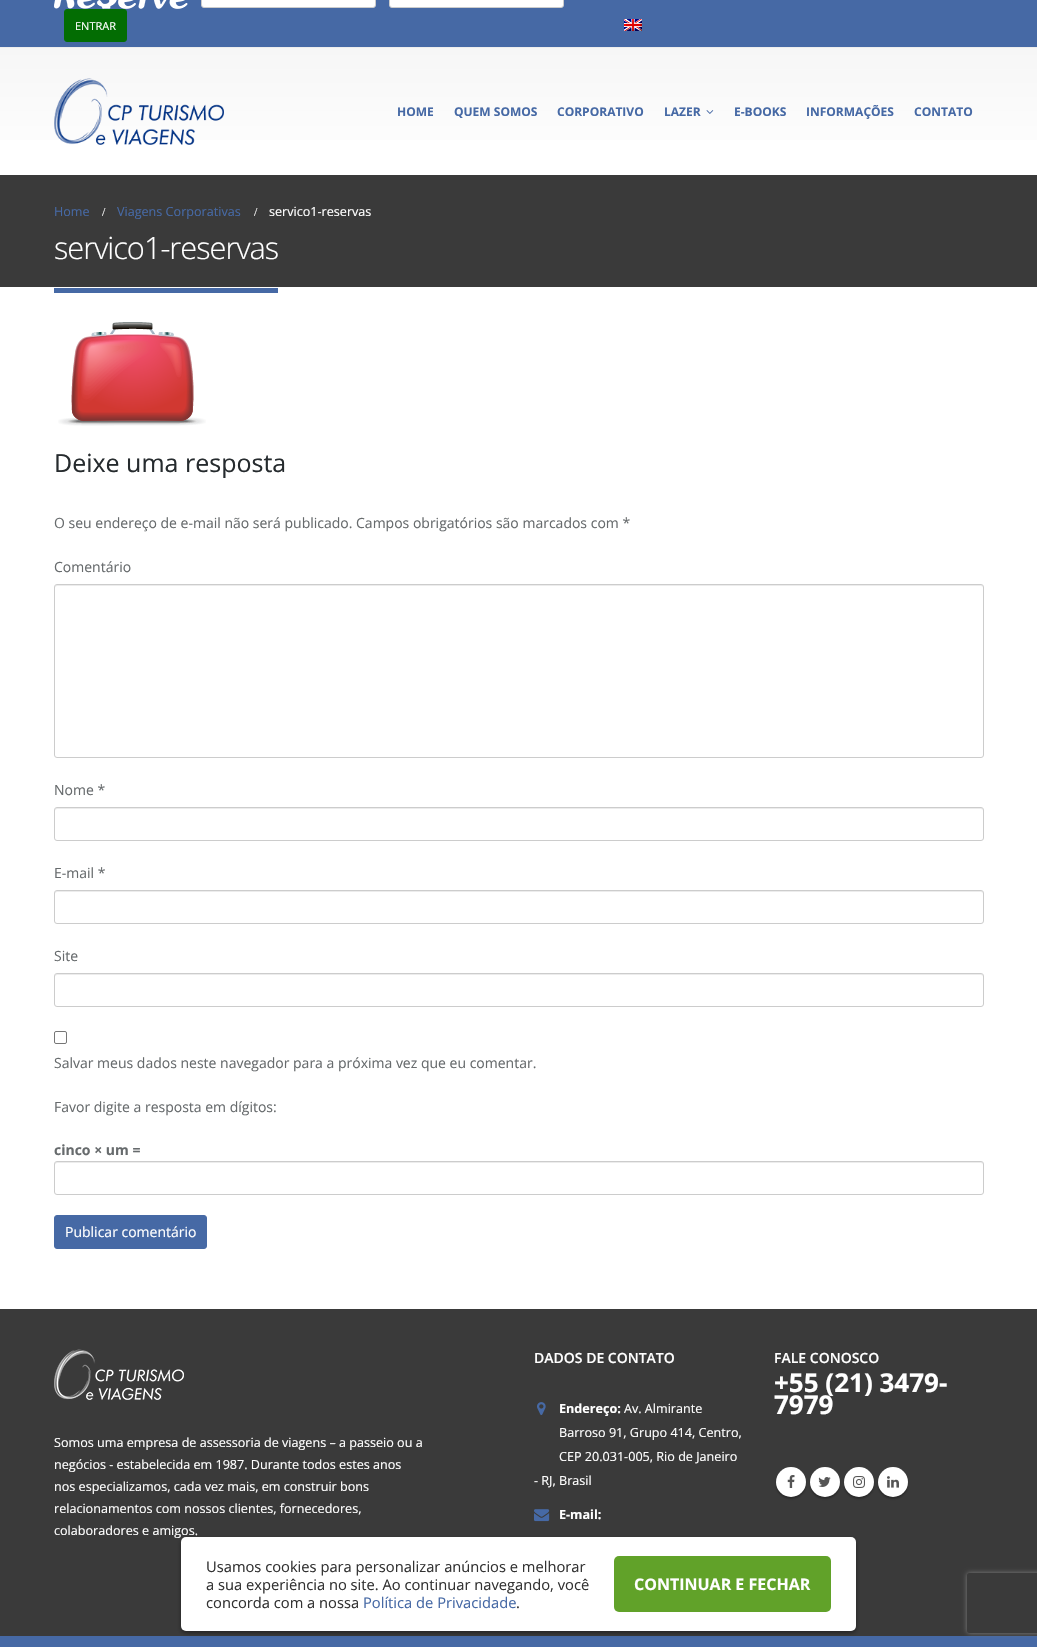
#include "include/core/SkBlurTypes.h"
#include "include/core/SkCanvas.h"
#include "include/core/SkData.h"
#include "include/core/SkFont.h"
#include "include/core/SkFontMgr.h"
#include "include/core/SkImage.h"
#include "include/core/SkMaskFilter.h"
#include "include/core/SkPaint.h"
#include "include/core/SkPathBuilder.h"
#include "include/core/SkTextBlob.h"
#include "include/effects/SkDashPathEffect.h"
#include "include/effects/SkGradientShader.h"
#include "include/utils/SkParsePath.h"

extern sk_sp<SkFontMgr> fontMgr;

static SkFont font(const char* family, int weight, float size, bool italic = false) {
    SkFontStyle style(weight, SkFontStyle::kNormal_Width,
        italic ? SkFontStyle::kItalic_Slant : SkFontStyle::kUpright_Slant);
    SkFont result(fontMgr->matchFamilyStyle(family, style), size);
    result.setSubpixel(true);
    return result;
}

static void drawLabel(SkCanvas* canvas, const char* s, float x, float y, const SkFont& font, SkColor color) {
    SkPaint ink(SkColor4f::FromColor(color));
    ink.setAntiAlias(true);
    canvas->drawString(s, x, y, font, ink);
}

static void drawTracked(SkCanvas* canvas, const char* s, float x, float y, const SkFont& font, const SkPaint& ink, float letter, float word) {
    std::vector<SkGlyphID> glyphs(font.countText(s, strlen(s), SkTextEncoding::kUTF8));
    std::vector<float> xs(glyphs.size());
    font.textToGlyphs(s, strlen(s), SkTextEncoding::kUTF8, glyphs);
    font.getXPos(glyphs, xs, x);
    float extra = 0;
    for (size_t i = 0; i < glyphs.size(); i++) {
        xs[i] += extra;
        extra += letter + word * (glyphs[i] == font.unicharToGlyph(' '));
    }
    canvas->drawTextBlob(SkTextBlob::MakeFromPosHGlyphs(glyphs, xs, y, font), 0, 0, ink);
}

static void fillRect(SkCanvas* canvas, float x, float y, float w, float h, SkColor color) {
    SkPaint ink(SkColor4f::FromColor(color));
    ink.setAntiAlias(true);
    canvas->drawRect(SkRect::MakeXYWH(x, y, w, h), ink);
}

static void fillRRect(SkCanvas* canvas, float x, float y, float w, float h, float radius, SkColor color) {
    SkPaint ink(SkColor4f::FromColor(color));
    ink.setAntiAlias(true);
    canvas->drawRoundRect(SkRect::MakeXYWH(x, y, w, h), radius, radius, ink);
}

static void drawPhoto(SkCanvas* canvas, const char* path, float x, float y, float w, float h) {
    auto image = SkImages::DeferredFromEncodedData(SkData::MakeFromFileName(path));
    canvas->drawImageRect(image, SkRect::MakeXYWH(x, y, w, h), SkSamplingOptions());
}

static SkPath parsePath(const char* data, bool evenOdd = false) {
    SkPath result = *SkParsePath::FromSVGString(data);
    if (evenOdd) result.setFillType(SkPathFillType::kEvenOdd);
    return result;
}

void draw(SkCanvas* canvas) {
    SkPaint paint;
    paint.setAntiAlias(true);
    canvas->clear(0xFFFFFFFF);
    fillRect(canvas, 0, 0, 1037, 47, 0xFF4669A5);
    fillRect(canvas, 0, 47, 1037, 1, 0xFFEDEDED);
    drawPhoto(canvas, "assets/img1.png", 54, 0, 134, 9);
    paint.setColor(0xFFFFFFFF);
    canvas->drawRoundRect(SkRect::MakeXYWH(201.5f, -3.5f, 174, 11), 2.5f, 2.5f, paint);
    paint.setStroke(true);
    paint.setStrokeWidth(1);
    paint.setColor(0xFFCCCCCC);
    canvas->drawRoundRect(SkRect::MakeXYWH(201.5f, -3.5f, 174, 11), 2.5f, 2.5f, paint);
    paint.setStroke(false);
    paint.setColor(0xFFFFFFFF);
    canvas->drawRoundRect(SkRect::MakeXYWH(389.5f, -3.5f, 174, 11), 2.5f, 2.5f, paint);
    paint.setStroke(true);
    paint.setColor(0xFFCCCCCC);
    canvas->drawRoundRect(SkRect::MakeXYWH(389.5f, -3.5f, 174, 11), 2.5f, 2.5f, paint);
    paint.setStroke(false);
    paint.setColor(0xFF036D03);
    canvas->drawRoundRect(SkRect::MakeXYWH(64.5f, 9.5f, 62, 32), 2.5f, 2.5f, paint);
    paint.setStroke(true);
    canvas->drawRoundRect(SkRect::MakeXYWH(64.5f, 9.5f, 62, 32), 2.5f, 2.5f, paint);
    SkFont font1 = font("Open Sans", 400, 11);
    drawLabel(canvas, "ENTRAR", 75, 30, font1, 0xFFFFFFFF);
    drawPhoto(canvas, "assets/img2.png", 624, 19, 18, 12);
    paint.setStroke(false);
    {
        const SkColor colors[] = {0xFFF6F6F6, 0xFFFFFFFF};
        const float stops[] = {0, 1};
        const SkPoint ends[] = {{519, 48}, {519, 175}};
        paint.setShader(SkGradientShader::MakeLinear(ends, colors, stops, 2, SkTileMode::kClamp));
        paint.setAlpha(255);
    }
    canvas->drawRect(SkRect::MakeXYWH(0, 48, 1037, 92), paint);
    drawPhoto(canvas, "assets/img3.png", 54, 78, 170, 67);
    SkFont font2 = font("Open Sans", 700, 12);
    drawLabel(canvas, "HOME", 397, 116, font2, 0xFF4669A5);
    drawLabel(canvas, "QUEM SOMOS", 454, 116, font2, 0xFF4669A5);
    drawLabel(canvas, "CORPORATIVO", 557, 116, font2, 0xFF4669A5);
    drawLabel(canvas, "LAZER", 664, 116, font2, 0xFF4669A5);
    drawPhoto(canvas, "assets/img4.png", 706, 110, 8, 4);
    drawLabel(canvas, "E-BOOKS", 734, 116, font2, 0xFF4669A5);
    drawLabel(canvas, "INFORMAÇÕES", 806, 116, font2, 0xFF4669A5);
    drawLabel(canvas, "CONTATO", 914, 116, font2, 0xFF4669A5);
    fillRect(canvas, 0, 175, 1037, 112, 0xFF3A3A3A);
    SkFont font3 = font("Open Sans", 400, 12.6f);
    drawLabel(canvas, "Home", 54, 216, font3, 0xFF4669A5);
    SkFont font4 = font("Liberation Serif", 400, 12);
    drawLabel(canvas, "/", 102, 216, font4, 0xFFFFFFFF);
    drawLabel(canvas, "Viagens Corporativas", 117, 216, font3, 0xFF4669A5);
    drawLabel(canvas, "/", 254, 216, font4, 0xFFFFFFFF);
    drawLabel(canvas, "servico1-reservas", 269, 216, font3, 0xFFFFFFFF);
    fillRect(canvas, 54, 288, 224, 5, 0xFF4669A5);
    SkFont font5 = font("Open Sans", 300, 30.75f);
    paint.setShader(nullptr);
    paint.setColor(0xFFFFFFFF);
    drawTracked(canvas, "servico1-reservas", 54, 259, font5, paint, -1, 0);
    drawPhoto(canvas, "assets/img5.png", 58, 322, 148, 104);
    SkFont font6 = font("Open Sans", 400, 25);
    drawLabel(canvas, "Deixe uma resposta", 54, 472, font6, 0xFF262B2E);
    SkFont font7 = font("Open Sans", 400, 14);
    drawLabel(canvas, "O seu endereço de e-mail não será publicado. Campos obrigatórios são marcados com *", 54, 528, font7, 0xFF676B6D);
    drawLabel(canvas, "Comentário", 54, 572, font7, 0xFF676B6D);
    paint.setColor(0xFFECECEC);
    canvas->drawPath(parsePath("M57 586H981C982 586 983 587 983 588V587L982 585H57C55 585 55 587 55 588C55 587 56 586 57 586Z"), paint);
    paint.setStroke(true);
    paint.setColor(0xFFCCCCCC);
    canvas->drawRoundRect(SkRect::MakeXYWH(54.5f, 584.5f, 929, 173), 2.5f, 2.5f, paint);
    drawLabel(canvas, "Nome *", 54, 795, font7, 0xFF676B6D);
    paint.setStroke(false);
    paint.setColor(0xFFECECEC);
    canvas->drawPath(parsePath("M57 809H981C982 809 983 810 983 811V810L982 808H57C55 808 55 810 55 811C55 810 56 809 57 809Z"), paint);
    paint.setStroke(true);
    paint.setColor(0xFFCCCCCC);
    canvas->drawRoundRect(SkRect::MakeXYWH(54.5f, 807.5f, 929, 33), 2.5f, 2.5f, paint);
    drawLabel(canvas, "E-mail *", 54, 878, font7, 0xFF676B6D);
    paint.setStroke(false);
    paint.setColor(0xFFECECEC);
    canvas->drawPath(parsePath("M57 892H981C982 892 983 893 983 894V893L982 891H57C55 891 55 893 55 894C55 893 56 892 57 892Z"), paint);
    paint.setStroke(true);
    paint.setColor(0xFFCCCCCC);
    canvas->drawRoundRect(SkRect::MakeXYWH(54.5f, 890.5f, 929, 33), 2.5f, 2.5f, paint);
    drawLabel(canvas, "Site", 54, 961, font7, 0xFF676B6D);
    paint.setStroke(false);
    paint.setColor(0xFFECECEC);
    canvas->drawPath(parsePath("M57 975H981C982 975 983 976 983 977V976L982 974H57C55 974 55 976 55 977C55 976 56 975 57 975Z"), paint);
    paint.setStroke(true);
    paint.setColor(0xFFCCCCCC);
    canvas->drawRoundRect(SkRect::MakeXYWH(54.5f, 973.5f, 929, 33), 2.5f, 2.5f, paint);
    paint.setColor(0xFF767676);
    canvas->drawRoundRect(SkRect::MakeXYWH(54.5f, 1031.5f, 12, 12), 1.5f, 1.5f, paint);
    drawLabel(canvas, "Salvar meus dados neste navegador para a próxima vez que eu comentar.", 54, 1068, font7, 0xFF676B6D);
    drawLabel(canvas, "Favor digite a resposta em dígitos:", 54, 1112, font7, 0xFF676B6D);
    SkFont font8 = font("Open Sans", 700, 14);
    drawLabel(canvas, "cinco × um =", 54, 1155, font8, 0xFF676B6D);
    paint.setStroke(false);
    paint.setColor(0xFFECECEC);
    canvas->drawPath(parsePath("M57 1163H981C982 1163 983 1164 983 1165V1164L982 1162H57C55 1162 55 1164 55 1165C55 1164 56 1163 57 1163Z"), paint);
    paint.setStroke(true);
    paint.setColor(0xFFCCCCCC);
    canvas->drawRoundRect(SkRect::MakeXYWH(54.5f, 1161.5f, 929, 33), 2.5f, 2.5f, paint);
    paint.setStroke(false);
    paint.setColor(0xFF4669A5);
    canvas->drawRoundRect(SkRect::MakeXYWH(54.5f, 1215.5f, 152, 33), 2.5f, 2.5f, paint);
    paint.setStroke(true);
    canvas->drawRoundRect(SkRect::MakeXYWH(54.5f, 1215.5f, 152, 33), 2.5f, 2.5f, paint);
    drawLabel(canvas, "Publicar comentário", 65, 1237, font7, 0xFFFFFFFF);
    fillRect(canvas, 0, 1309, 1037, 327, 0xFF3A3A3A);
    SkFont font9 = font("Open Sans", 600, 14);
    drawLabel(canvas, "DADOS DE CONTATO", 534, 1363, font9, 0xFFFFFFFF);
    drawPhoto(canvas, "assets/img6.png", 537, 1402, 9, 13);
    SkFont font10 = font("Open Sans", 700, 12.6f);
    drawLabel(canvas, "Endereço:", 559, 1413, font10, 0xFFFFFFFF);
    drawLabel(canvas, "Av. Almirante", 624, 1413, font3, 0xFFFFFFFF);
    drawLabel(canvas, "Barroso 91, Grupo 414, Centro,", 559, 1437, font3, 0xFFFFFFFF);
    drawLabel(canvas, "CEP 20.031-005, Rio de Janeiro", 559, 1461, font3, 0xFFFFFFFF);
    drawLabel(canvas, "- RJ, Brasil", 534, 1485, font3, 0xFFFFFFFF);
    drawPhoto(canvas, "assets/img7.png", 534, 1509, 16, 13);
    drawLabel(canvas, "E-mail:", 559, 1519, font10, 0xFFFFFFFF);
    drawLabel(canvas, "FALE CONOSCO", 774, 1363, font9, 0xFFFFFFFF);
    SkFont font11 = font("Open Sans", 700, 26);
    drawLabel(canvas, "+55 (21) 3479-", 774, 1392, font11, 0xFFFFFFFF);
    drawLabel(canvas, "7979", 774, 1414, font11, 0xFFFFFFFF);
    paint.setStroke(false);
    paint.setColor(0x4D000000);
    paint.setMaskFilter(SkMaskFilter::MakeBlur(kNormal_SkBlurStyle, 1));
    canvas->drawRoundRect(SkRect::MakeXYWH(776, 1469, 30, 30), 15, 15, paint);
    paint.setMaskFilter(nullptr);
    paint.setColor(0xFFFFFFFF);
    canvas->drawCircle(791, 1482, 15, paint);
    drawPhoto(canvas, "assets/img8.png", 787, 1475, 8, 13);
    paint.setColor(0x4D000000);
    paint.setMaskFilter(SkMaskFilter::MakeBlur(kNormal_SkBlurStyle, 1));
    canvas->drawRoundRect(SkRect::MakeXYWH(810, 1469, 30, 30), 15, 15, paint);
    paint.setMaskFilter(nullptr);
    paint.setColor(0xFFFFFFFF);
    canvas->drawCircle(825, 1482, 15, paint);
    drawPhoto(canvas, "assets/img9.png", 818, 1477, 13, 10);
    paint.setColor(0x4D000000);
    paint.setMaskFilter(SkMaskFilter::MakeBlur(kNormal_SkBlurStyle, 1));
    canvas->drawRoundRect(SkRect::MakeXYWH(844, 1469, 30, 30), 15, 15, paint);
    paint.setMaskFilter(nullptr);
    paint.setColor(0xFFFFFFFF);
    canvas->drawCircle(859, 1482, 15, paint);
    drawPhoto(canvas, "assets/img10.png", 853, 1476, 12, 12);
    paint.setColor(0x4D000000);
    paint.setMaskFilter(SkMaskFilter::MakeBlur(kNormal_SkBlurStyle, 1));
    canvas->drawRoundRect(SkRect::MakeXYWH(878, 1469, 30, 30), 15, 15, paint);
    paint.setMaskFilter(nullptr);
    paint.setColor(0xFFFFFFFF);
    canvas->drawCircle(893, 1482, 15, paint);
    drawPhoto(canvas, "assets/img11.png", 887, 1476, 12, 12);
    drawPhoto(canvas, "assets/img12.png", 54, 1349, 130, 51);
    drawLabel(canvas, "Somos uma empresa de assessoria de viagens – a passeio ou a", 54, 1447, font3, 0xFFFFFFFF);
    drawLabel(canvas, "negócios - estabelecida em 1987. Durante todos estes anos", 54, 1469, font3, 0xFFFFFFFF);
    drawLabel(canvas, "nos especializamos, cada vez mais, em construir bons", 54, 1491, font3, 0xFFFFFFFF);
    drawLabel(canvas, "relacionamentos com nossos clientes, fornecedores,", 54, 1513, font3, 0xFFFFFFFF);
    drawLabel(canvas, "colaboradores e amigos.", 54, 1535, font3, 0xFFFFFFFF);
    fillRect(canvas, 0, 1636, 1037, 11, 0xFF4669A5);
    paint.setColor(0x66000000);
    paint.setMaskFilter(SkMaskFilter::MakeBlur(kNormal_SkBlurStyle, 2));
    canvas->drawRoundRect(SkRect::MakeXYWH(181, 1539, 675, 94), 5, 5, paint);
    paint.setMaskFilter(nullptr);
    fillRRect(canvas, 181, 1537, 675, 94, 5, 0xFFFFFFFF);
    SkFont font12 = font("Open Sans", 400, 14.7f);
    drawLabel(canvas, "Usamos cookies para personalizar anúncios e melhorar", 206, 1572, font12, 0xFF333333);
    drawLabel(canvas, "a sua experiência no site. Ao continuar navegando, você", 206, 1590, font12, 0xFF333333);
    drawLabel(canvas, "concorda com a nossa", 206, 1608, font12, 0xFF333333);
    drawLabel(canvas, "Política de Privacidade", 363, 1608, font12, 0xFF4669A5);
    drawLabel(canvas, ".", 516, 1608, font12, 0xFF333333);
    fillRRect(canvas, 614, 1556, 217, 56, 5, 0xFF61A229);
    SkFont font13 = font("Open Sans", 700, 16);
    drawLabel(canvas, "CONTINUAR E FECHAR", 634, 1590, font13, 0xFFFFFFFF);
    canvas->save();
    canvas->clipPath(parsePath("M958 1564H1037V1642H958ZM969 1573H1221C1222 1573 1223 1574 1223 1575V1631C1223 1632 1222 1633 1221 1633H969C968 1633 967 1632 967 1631V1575C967 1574 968 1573 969 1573Z", true), true);
    paint.setColor(0xFF808080);
    paint.setMaskFilter(SkMaskFilter::MakeBlur(kNormal_SkBlurStyle, 2.5f));
    canvas->drawRoundRect(SkRect::MakeXYWH(967, 1573, 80, 60), 2, 2, paint);
    paint.setMaskFilter(nullptr);
    canvas->restore();
}
